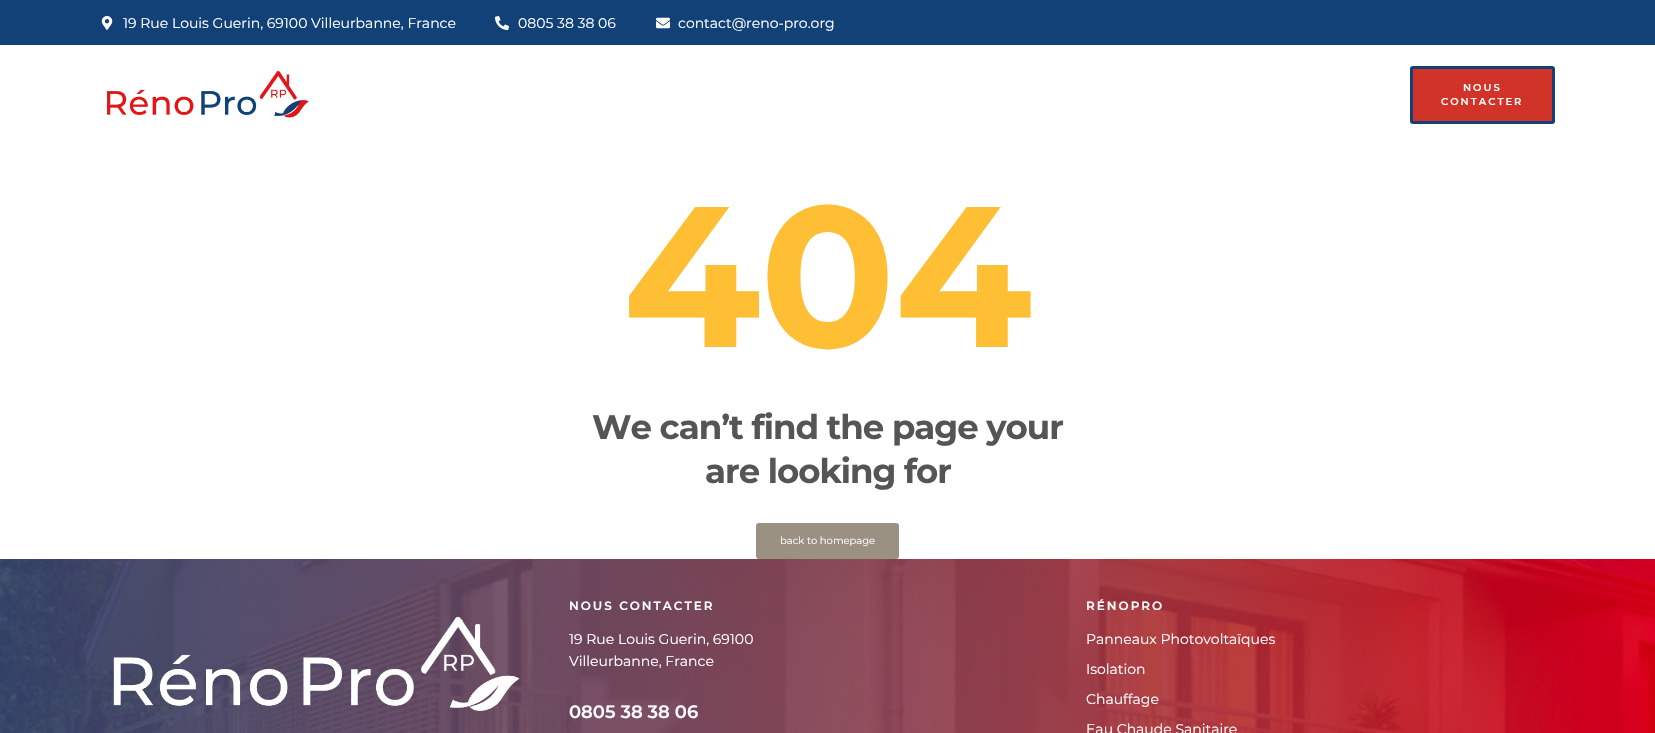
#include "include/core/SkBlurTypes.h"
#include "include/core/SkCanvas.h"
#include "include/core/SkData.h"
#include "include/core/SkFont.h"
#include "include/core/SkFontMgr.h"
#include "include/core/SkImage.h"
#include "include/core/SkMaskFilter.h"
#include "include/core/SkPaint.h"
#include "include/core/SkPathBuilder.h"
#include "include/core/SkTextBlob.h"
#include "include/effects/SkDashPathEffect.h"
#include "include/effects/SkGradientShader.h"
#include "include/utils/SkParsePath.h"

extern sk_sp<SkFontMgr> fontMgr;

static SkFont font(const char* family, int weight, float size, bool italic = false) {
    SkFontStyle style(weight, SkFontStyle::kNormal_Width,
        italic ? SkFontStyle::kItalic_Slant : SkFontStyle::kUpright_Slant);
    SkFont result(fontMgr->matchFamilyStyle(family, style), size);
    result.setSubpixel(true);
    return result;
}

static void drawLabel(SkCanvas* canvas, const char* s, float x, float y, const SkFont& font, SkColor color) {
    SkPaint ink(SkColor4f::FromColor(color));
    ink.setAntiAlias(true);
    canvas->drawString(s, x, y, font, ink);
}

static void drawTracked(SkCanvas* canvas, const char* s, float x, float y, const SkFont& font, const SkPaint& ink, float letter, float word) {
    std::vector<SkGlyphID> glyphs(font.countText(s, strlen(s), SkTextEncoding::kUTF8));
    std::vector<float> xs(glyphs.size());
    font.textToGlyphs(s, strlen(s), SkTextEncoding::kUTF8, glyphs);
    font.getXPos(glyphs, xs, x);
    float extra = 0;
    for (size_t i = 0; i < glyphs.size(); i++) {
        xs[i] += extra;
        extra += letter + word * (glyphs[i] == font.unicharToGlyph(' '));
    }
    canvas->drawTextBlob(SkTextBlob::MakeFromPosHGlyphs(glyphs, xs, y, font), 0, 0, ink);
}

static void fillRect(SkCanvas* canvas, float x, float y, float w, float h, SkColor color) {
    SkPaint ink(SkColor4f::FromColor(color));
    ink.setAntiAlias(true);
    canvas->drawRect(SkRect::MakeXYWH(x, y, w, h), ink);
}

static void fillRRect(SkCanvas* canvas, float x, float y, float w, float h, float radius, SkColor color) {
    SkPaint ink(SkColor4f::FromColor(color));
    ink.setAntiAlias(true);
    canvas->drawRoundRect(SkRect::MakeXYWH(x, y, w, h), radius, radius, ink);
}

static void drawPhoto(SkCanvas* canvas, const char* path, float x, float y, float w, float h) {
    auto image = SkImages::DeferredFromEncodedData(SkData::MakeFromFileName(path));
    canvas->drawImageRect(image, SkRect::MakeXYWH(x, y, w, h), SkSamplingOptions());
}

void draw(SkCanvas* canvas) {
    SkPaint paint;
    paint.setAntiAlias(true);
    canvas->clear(0xFFFFFFFF);
    fillRect(canvas, 0, 0, 1655, 45, 0xFF124177);
    drawPhoto(canvas, "assets/img1.png", 101, 16, 12, 14);
    SkFont font1 = font("Montserrat", 400, 14);
    drawLabel(canvas, "19 Rue Louis Guerin, 69100 Villeurbanne, France", 123, 28, font1, 0xFFFFFFFF);
    drawPhoto(canvas, "assets/img2.png", 495, 16, 14, 14);
    drawLabel(canvas, "0805 38 38 06", 518, 28, font1, 0xFFFFFFFF);
    drawPhoto(canvas, "assets/img3.png", 656, 17, 14, 12);
    drawLabel(canvas, "contact@reno-pro.org", 678, 28, font1, 0xFFFFFFFF);
    drawPhoto(canvas, "assets/img4.png", 107, 70, 202, 48);
    paint.setColor(0xFFD13328);
    canvas->drawRoundRect(SkRect::MakeXYWH(1411.5f, 67.5f, 142, 55), 1.5f, 1.5f, paint);
    paint.setStroke(true);
    paint.setStrokeWidth(3);
    paint.setColor(0xFF124177);
    canvas->drawRoundRect(SkRect::MakeXYWH(1411.5f, 67.5f, 142, 55), 1.5f, 1.5f, paint);
    SkFont font2 = font("Montserrat", 600, 10);
    paint.setStroke(false);
    paint.setColor(0xFFFFFFFF);
    drawTracked(canvas, "NOUS", 1463, 91, font2, paint, 2, 0);
    drawTracked(canvas, "CONTACTER", 1441, 105, font2, paint, 2, 0);
    SkFont font3 = font("Montserrat", 700, 200);
    paint.setColor(0xFFFFBF35);
    drawTracked(canvas, "404", 623, 347, font3, paint, -1, 0);
    SkFont font4 = font("Montserrat", 700, 34);
    paint.setColor(0xFF555555);
    drawTracked(canvas, "We can’t find the page your", 592, 439, font4, paint, -1, 0);
    drawTracked(canvas, "are looking for", 705, 483, font4, paint, -1, 0);
    fillRRect(canvas, 756, 523, 143, 36, 3, 0xFF9B9183);
    SkFont font5 = font("Montserrat", 400, 10);
    drawLabel(canvas, "back to homepage", 780, 544, font5, 0xFFFFFFFF);
    drawPhoto(canvas, "assets/img5.png", 0, 559, 1655, 174);
    drawPhoto(canvas, "assets/img6.png", 113, 616, 407, 95);
    SkFont font6 = font("Montserrat", 600, 12);
    paint.setColor(0xFFFFFFFF);
    drawTracked(canvas, "NOUS CONTACTER", 569, 610, font6, paint, 2, 0);
    drawLabel(canvas, "19 Rue Louis Guerin, 69100", 569, 644, font1, 0xFFFFFFFF);
    drawLabel(canvas, "Villeurbanne, France", 569, 666, font1, 0xFFFFFFFF);
    SkFont font7 = font("Montserrat", 600, 18);
    drawLabel(canvas, "0805 38 38 06", 569, 718, font7, 0xFFFFFFFF);
    drawTracked(canvas, "RÉNOPRO", 1086, 610, font6, paint, 2, 0);
    drawLabel(canvas, "Panneaux Photovoltaïques", 1086, 644, font1, 0xFFFFFFFF);
    drawLabel(canvas, "Isolation", 1086, 674, font1, 0xFFFFFFFF);
    drawLabel(canvas, "Chauffage", 1086, 704, font1, 0xFFFFFFFF);
    drawLabel(canvas, "Eau Chaude Sanitaire", 1086, 734, font1, 0xFFFFFFFF);
}
